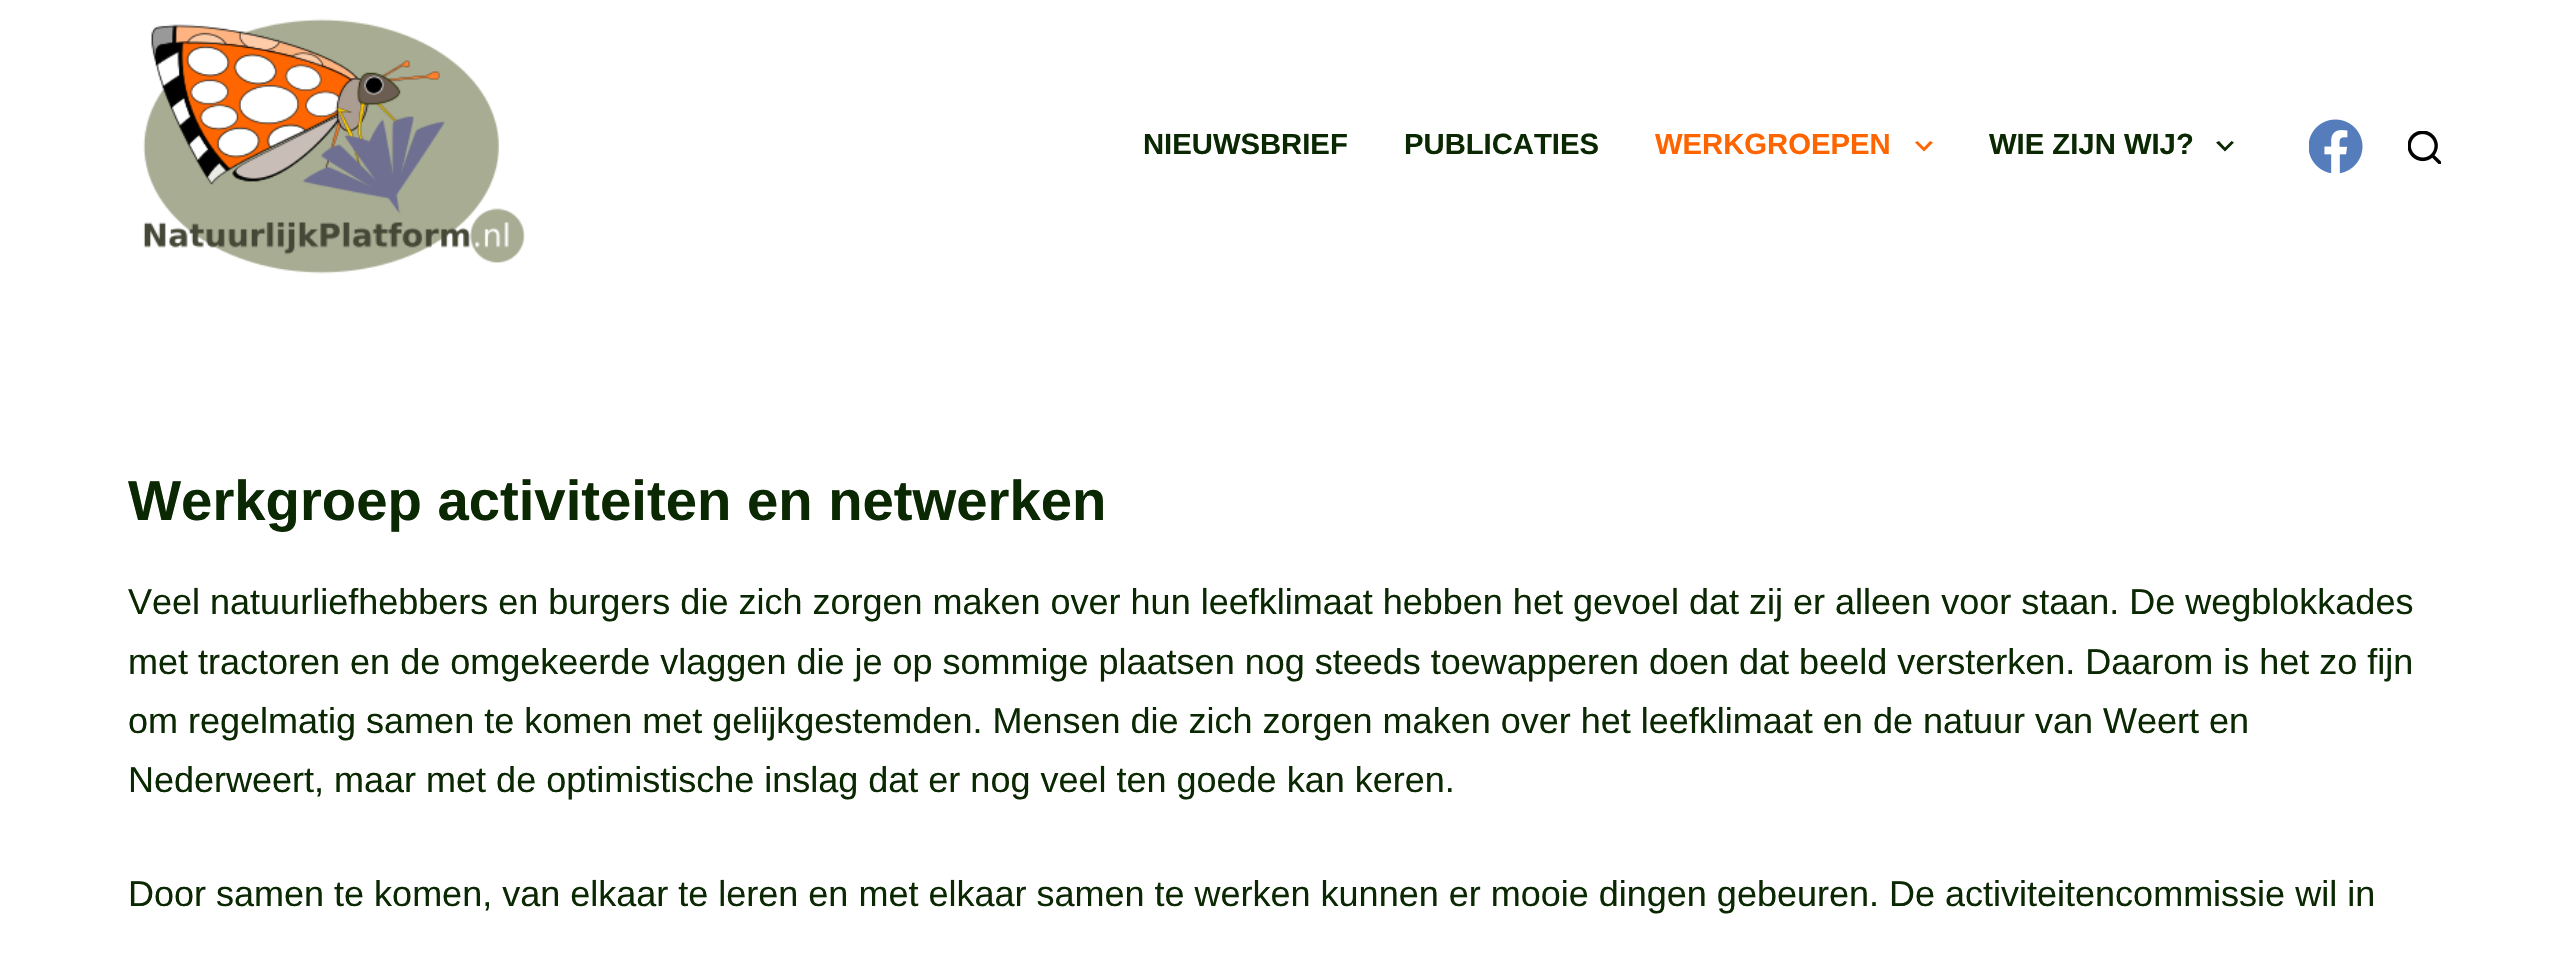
#include "include/core/SkBlurTypes.h"
#include "include/core/SkCanvas.h"
#include "include/core/SkData.h"
#include "include/core/SkFont.h"
#include "include/core/SkFontMgr.h"
#include "include/core/SkImage.h"
#include "include/core/SkMaskFilter.h"
#include "include/core/SkPaint.h"
#include "include/core/SkPathBuilder.h"
#include "include/core/SkTextBlob.h"
#include "include/effects/SkDashPathEffect.h"
#include "include/effects/SkGradientShader.h"
#include "include/utils/SkParsePath.h"

extern sk_sp<SkFontMgr> fontMgr;

static SkFont font(const char* family, int weight, float size, bool italic = false) {
    SkFontStyle style(weight, SkFontStyle::kNormal_Width,
        italic ? SkFontStyle::kItalic_Slant : SkFontStyle::kUpright_Slant);
    SkFont result(fontMgr->matchFamilyStyle(family, style), size);
    result.setSubpixel(true);
    return result;
}

static void drawLabel(SkCanvas* canvas, const char* s, float x, float y, const SkFont& font, SkColor color) {
    SkPaint ink(SkColor4f::FromColor(color));
    ink.setAntiAlias(true);
    canvas->drawString(s, x, y, font, ink);
}

static void drawPhoto(SkCanvas* canvas, const char* path, float x, float y, float w, float h) {
    auto image = SkImages::DeferredFromEncodedData(SkData::MakeFromFileName(path));
    canvas->drawImageRect(image, SkRect::MakeXYWH(x, y, w, h), SkSamplingOptions());
}

static SkPath parsePath(const char* data, bool evenOdd = false) {
    SkPath result = *SkParsePath::FromSVGString(data);
    if (evenOdd) result.setFillType(SkPathFillType::kEvenOdd);
    return result;
}

void draw(SkCanvas* canvas) {
    SkPaint paint;
    paint.setAntiAlias(true);
    canvas->clear(0xFFFFFFFF);
    drawPhoto(canvas, "assets/img1.png", 143, 19, 382, 255);
    SkFont font1 = font("Liberation Sans", 700, 29.25f);
    drawLabel(canvas, "NIEUWSBRIEF", 1143, 154, font1, 0xFF0A2802);
    drawLabel(canvas, "PUBLICATIES", 1404, 154, font1, 0xFF0A2802);
    drawLabel(canvas, "WERKGROEPEN", 1655, 154, font1, 0xFFFE6500);
    paint.setColor(0xFFFE6500);
    canvas->drawPath(parsePath("M1917.5 141L1924 147.5L1930 141L1933 142.5L1924 151.5L1915 142.5Z"), paint);
    drawLabel(canvas, "WIE ZIJN WIJ?", 1989, 154, font1, 0xFF0A2802);
    paint.setColor(0xFF0A2802);
    canvas->drawPath(parsePath("M2219 141L2225 147.5L2231.5 141L2234 142.5L2225 151.5L2216 142.5Z"), paint);
    drawPhoto(canvas, "assets/img2.png", 2309, 119, 54, 54);
    drawPhoto(canvas, "assets/img3.png", 2408, 131, 33, 33);
    SkFont font2 = font("Liberation Sans", 700, 56.25f);
    drawLabel(canvas, "Werkgroep activiteiten en netwerken", 128, 520, font2, 0xFF0A2802);
    SkFont font3 = font("Liberation Sans", 400, 36);
    drawLabel(canvas, "Veel natuurliefhebbers en burgers die zich zorgen maken over hun leefklimaat hebben het gevoel dat zij er alleen voor staan. De wegblokkades", 128, 614, font3, 0xFF0A2802);
    drawLabel(canvas, "met tractoren en de omgekeerde vlaggen die je op sommige plaatsen nog steeds toewapperen doen dat beeld versterken. Daarom is het zo fijn", 128, 674, font3, 0xFF0A2802);
    drawLabel(canvas, "om regelmatig samen te komen met gelijkgestemden. Mensen die zich zorgen maken over het leefklimaat en de natuur van Weert en", 128, 733, font3, 0xFF0A2802);
    drawLabel(canvas, "Nederweert, maar met de optimistische inslag dat er nog veel ten goede kan keren.", 128, 792, font3, 0xFF0A2802);
    drawLabel(canvas, "Door samen te komen, van elkaar te leren en met elkaar samen te werken kunnen er mooie dingen gebeuren. De activiteitencommissie wil in", 128, 906, font3, 0xFF0A2802);
}
